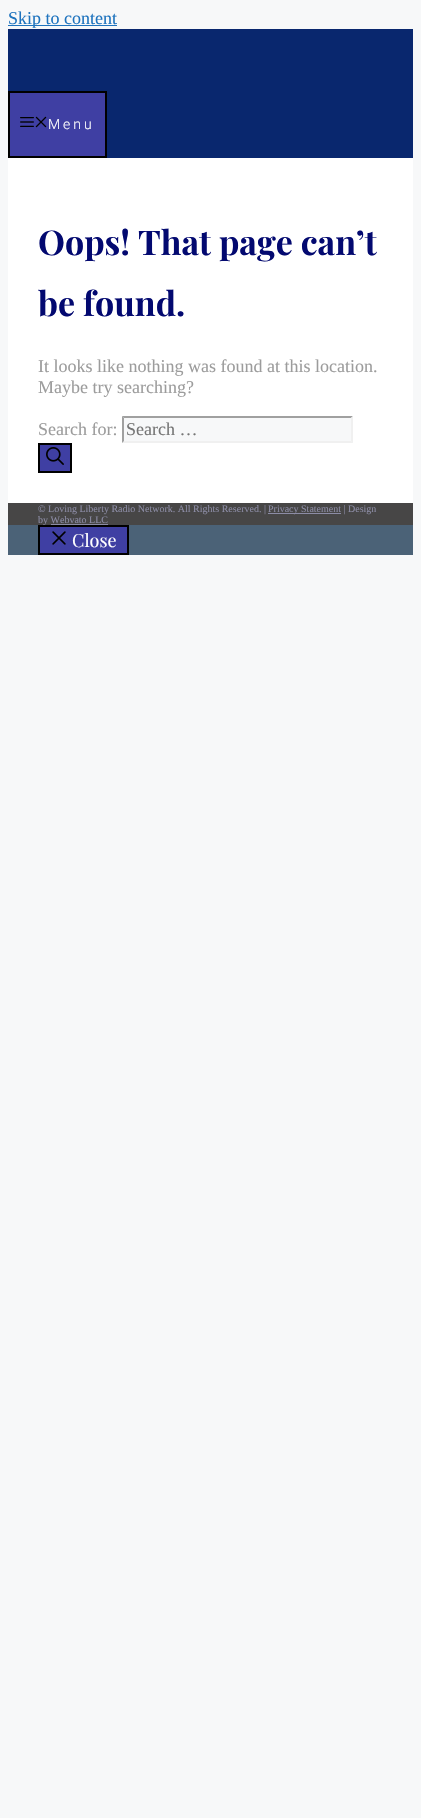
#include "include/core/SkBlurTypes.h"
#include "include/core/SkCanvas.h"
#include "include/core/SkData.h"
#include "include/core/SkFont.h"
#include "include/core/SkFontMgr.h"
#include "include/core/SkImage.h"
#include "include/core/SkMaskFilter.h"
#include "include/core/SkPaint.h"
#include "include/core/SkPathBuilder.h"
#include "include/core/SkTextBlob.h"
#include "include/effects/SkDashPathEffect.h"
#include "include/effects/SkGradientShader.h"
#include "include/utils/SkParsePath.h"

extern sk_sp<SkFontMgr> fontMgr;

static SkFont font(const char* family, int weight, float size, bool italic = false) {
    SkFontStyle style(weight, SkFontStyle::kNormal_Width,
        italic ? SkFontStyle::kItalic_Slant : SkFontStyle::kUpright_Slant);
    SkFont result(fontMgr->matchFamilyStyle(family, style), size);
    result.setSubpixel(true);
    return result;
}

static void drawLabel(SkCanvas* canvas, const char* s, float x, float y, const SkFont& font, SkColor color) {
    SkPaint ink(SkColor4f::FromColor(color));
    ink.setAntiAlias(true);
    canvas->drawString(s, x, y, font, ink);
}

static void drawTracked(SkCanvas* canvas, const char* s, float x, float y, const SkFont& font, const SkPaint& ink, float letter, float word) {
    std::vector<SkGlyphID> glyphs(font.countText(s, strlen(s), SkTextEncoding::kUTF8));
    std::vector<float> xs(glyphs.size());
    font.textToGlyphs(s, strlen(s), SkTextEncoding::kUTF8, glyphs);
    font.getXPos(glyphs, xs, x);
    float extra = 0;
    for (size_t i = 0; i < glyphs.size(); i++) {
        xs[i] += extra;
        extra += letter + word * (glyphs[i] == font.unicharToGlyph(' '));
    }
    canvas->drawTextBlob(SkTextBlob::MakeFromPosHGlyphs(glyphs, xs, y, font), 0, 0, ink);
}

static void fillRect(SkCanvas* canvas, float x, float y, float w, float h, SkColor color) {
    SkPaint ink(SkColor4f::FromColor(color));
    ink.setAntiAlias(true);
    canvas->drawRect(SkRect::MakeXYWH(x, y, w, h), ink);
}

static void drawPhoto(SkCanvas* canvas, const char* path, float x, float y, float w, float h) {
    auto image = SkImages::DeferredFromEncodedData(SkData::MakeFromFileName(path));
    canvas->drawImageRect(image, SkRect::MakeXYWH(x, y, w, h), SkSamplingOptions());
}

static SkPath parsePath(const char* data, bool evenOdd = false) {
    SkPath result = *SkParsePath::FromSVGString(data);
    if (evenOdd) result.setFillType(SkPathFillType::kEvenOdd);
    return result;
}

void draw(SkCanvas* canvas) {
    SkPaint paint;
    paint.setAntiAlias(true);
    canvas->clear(0xFFF7F8F9);
    fillRect(canvas, 8, 25, 109, 1, 0xFF1E73BE);
    SkFont font1 = font("Liberation Serif", 400, 18);
    drawLabel(canvas, "Skip to content", 8, 24, font1, 0xFF1E73BE);
    fillRect(canvas, 8, 29, 405, 129, 0xFF09276E);
    paint.setColor(0xFF3F3FA3);
    canvas->drawRect(SkRect::MakeXYWH(9, 92, 97, 65), paint);
    paint.setStroke(true);
    paint.setStrokeWidth(2);
    paint.setColor(0xFF000000);
    canvas->drawRect(SkRect::MakeXYWH(9, 92, 97, 65), paint);
    drawPhoto(canvas, "assets/img1.png", 20, 117, 14, 10);
    drawPhoto(canvas, "assets/img2.png", 35, 116, 12, 12);
    SkFont font2 = font("Roboto", 300, 14);
    paint.setStroke(false);
    paint.setColor(0xFFFFFFFF);
    drawTracked(canvas, "Menu", 48, 129, font2, paint, 3, 0);
    fillRect(canvas, 8, 158, 405, 345, 0xFFFFFFFF);
    SkFont font3 = font("Playfair Display", 700, 34);
    drawLabel(canvas, "Oops! That page can’t", 38, 255, font3, 0xFF030970);
    drawLabel(canvas, "be found.", 38, 316, font3, 0xFF030970);
    drawLabel(canvas, "It looks like nothing was found at this location.", 38, 372, font1, 0xFF9C9C9C);
    drawLabel(canvas, "Maybe try searching?", 38, 393, font1, 0xFF9C9C9C);
    drawLabel(canvas, "Search for:", 38, 435, font1, 0xFF9C9C9C);
    fillRect(canvas, 122, 416, 231, 27, 0xFFF7F8F9);
    paint.setColor(0xFFA0A0A0);
    canvas->drawPath(parsePath("M122 416H353L351 418H124Z"), paint);
    paint.setColor(0xFFF0F0F0);
    canvas->drawPath(parsePath("M353 416V443L351 441V418Z"), paint);
    canvas->drawPath(parsePath("M353 443H122L124 441H351Z"), paint);
    paint.setColor(0xFFA0A0A0);
    canvas->drawPath(parsePath("M122 443V416L124 418V441Z"), paint);
    drawLabel(canvas, "Search …", 126, 435, font1, 0xFF757575);
    paint.setColor(0xFF3F3FA3);
    canvas->drawRect(SkRect::MakeXYWH(39, 444, 32, 28), paint);
    paint.setStroke(true);
    paint.setColor(0xFF000000);
    canvas->drawRect(SkRect::MakeXYWH(39, 444, 32, 28), paint);
    drawPhoto(canvas, "assets/img3.png", 46, 447, 18, 18);
    fillRect(canvas, 8, 503, 405, 22, 0xFF474646);
    SkFont font4 = font("Liberation Serif", 400, 10);
    drawLabel(canvas, "© Loving Liberty Radio Network. All Rights Reserved. |", 38, 512, font4, 0xFF8C8CA5);
    fillRect(canvas, 268, 513, 73, 1, 0xFF8C8CA5);
    drawLabel(canvas, "Privacy Statement | Design", 268, 512, font4, 0xFF8C8CA5);
    fillRect(canvas, 8, 525, 405, 30, 0xFF4B6277);
    drawLabel(canvas, "by Webvato LLC", 38, 523, font4, 0xFF8C8CA5);
    fillRect(canvas, 51, 524, 57, 1, 0xFF8C8CA5);
    paint.setStroke(false);
    paint.setColor(0xFF3F3FA3);
    canvas->drawRect(SkRect::MakeXYWH(39, 526, 89, 28), paint);
    paint.setStroke(true);
    paint.setColor(0xFF000000);
    canvas->drawRect(SkRect::MakeXYWH(39, 526, 89, 28), paint);
    drawPhoto(canvas, "assets/img4.png", 52, 531, 14, 14);
    SkFont font5 = font("Playfair Display", 400, 18);
    drawLabel(canvas, "Close", 72, 547, font5, 0xFFFFFFFF);
}
